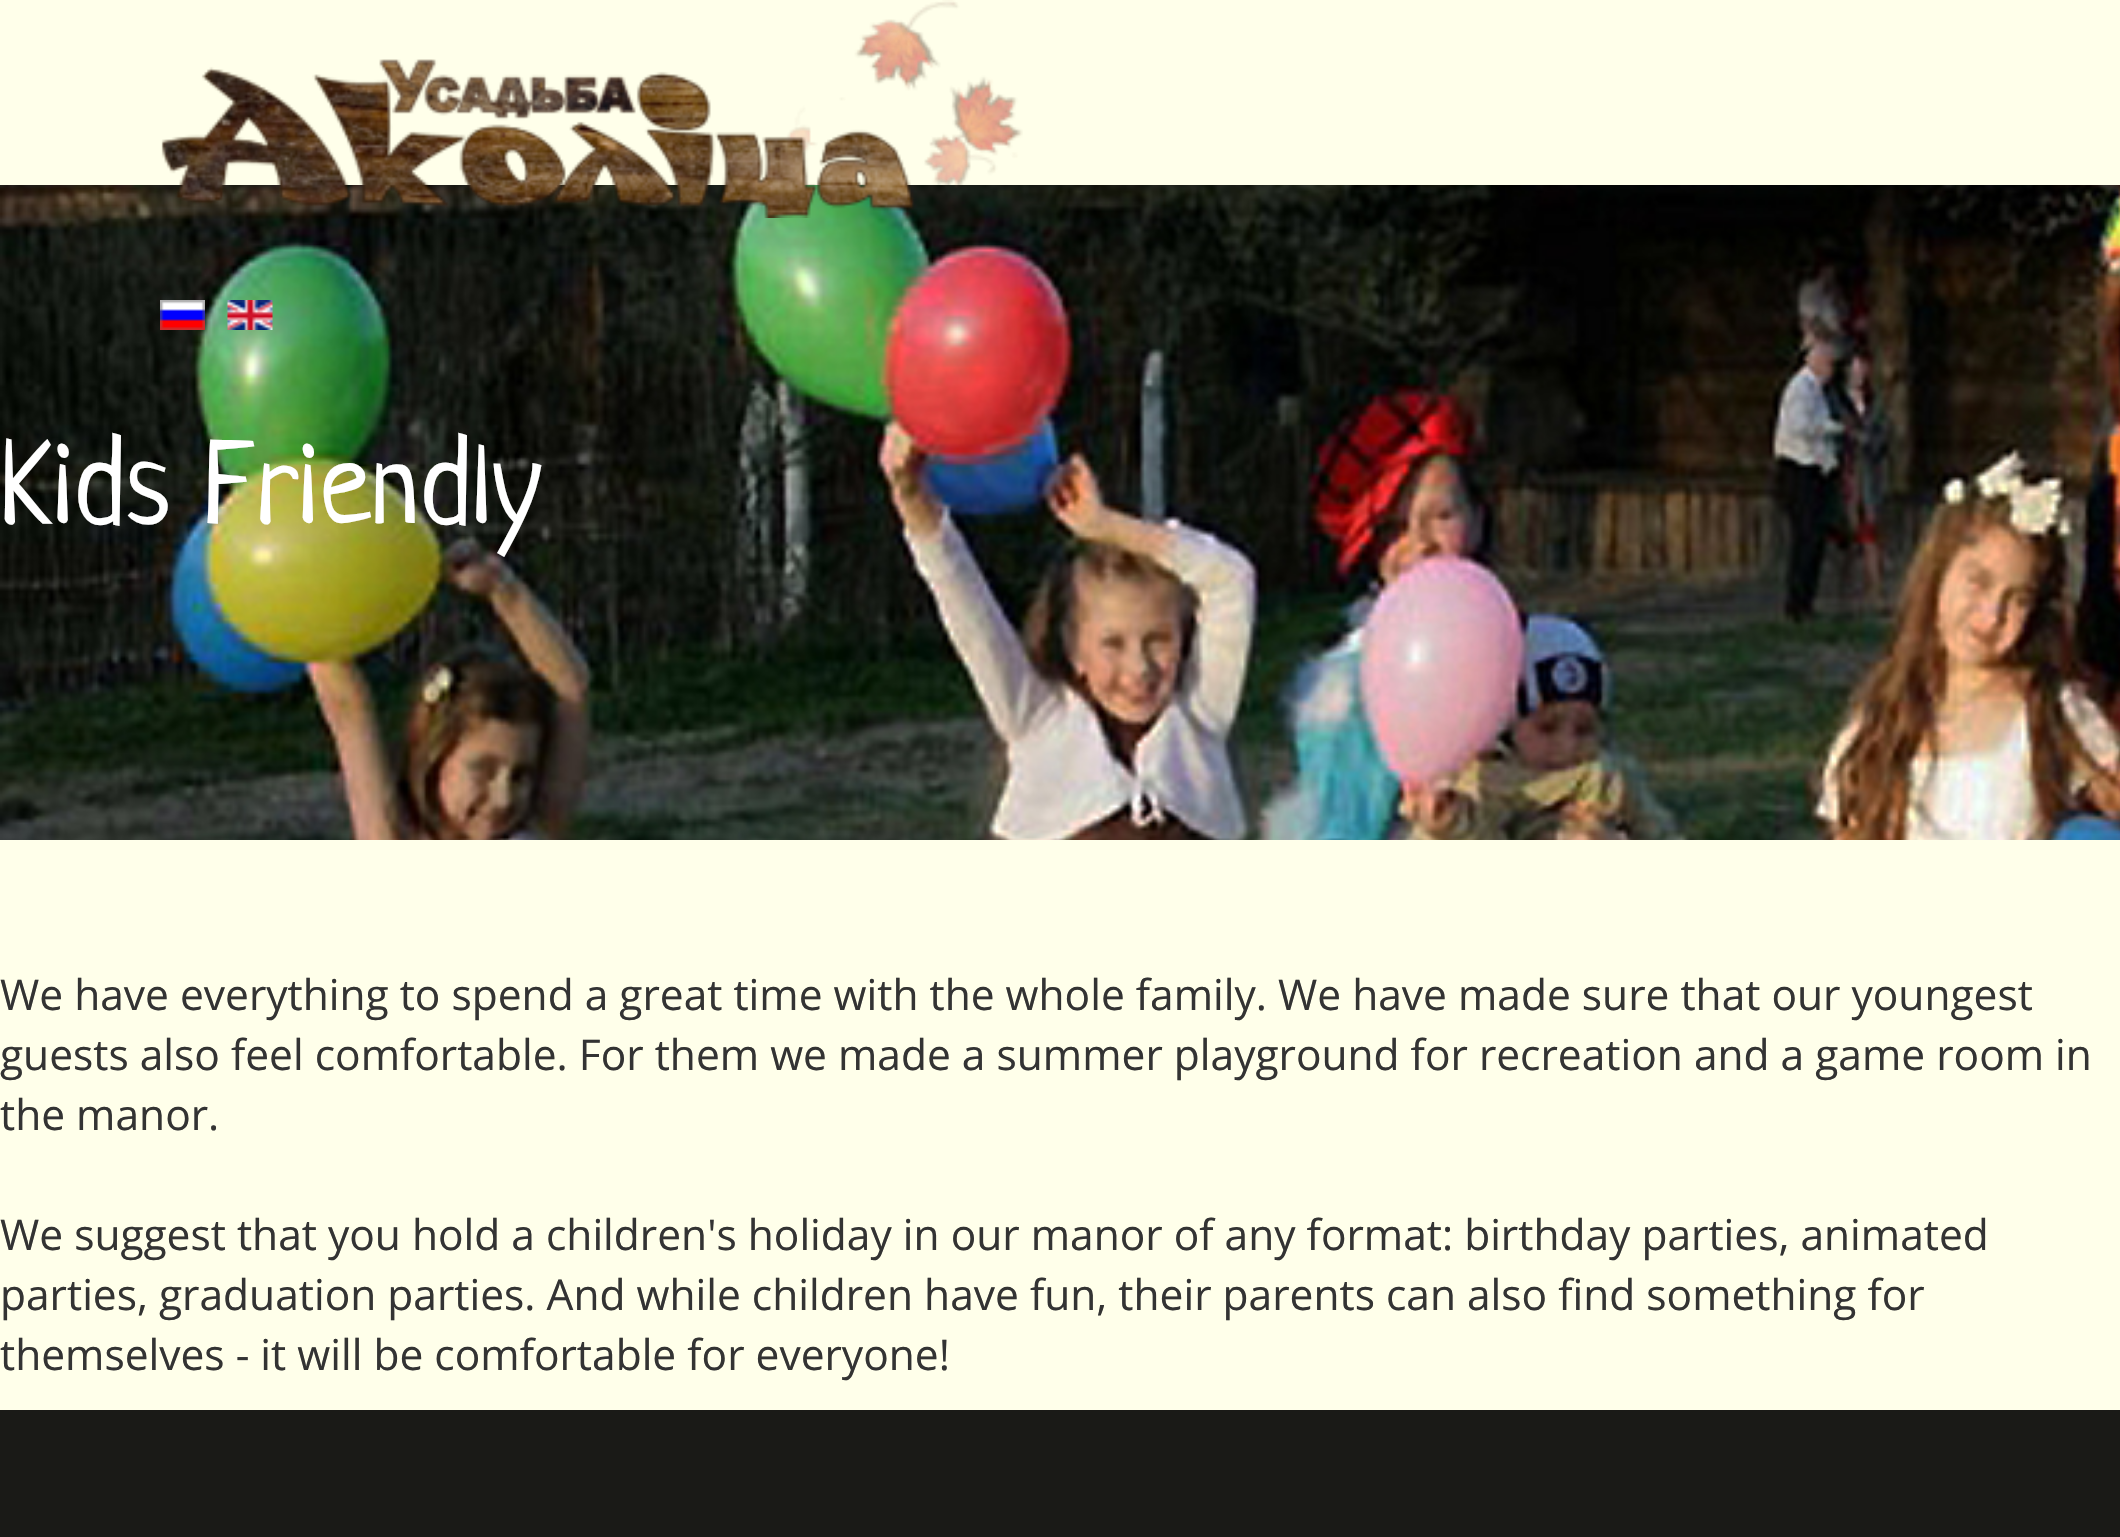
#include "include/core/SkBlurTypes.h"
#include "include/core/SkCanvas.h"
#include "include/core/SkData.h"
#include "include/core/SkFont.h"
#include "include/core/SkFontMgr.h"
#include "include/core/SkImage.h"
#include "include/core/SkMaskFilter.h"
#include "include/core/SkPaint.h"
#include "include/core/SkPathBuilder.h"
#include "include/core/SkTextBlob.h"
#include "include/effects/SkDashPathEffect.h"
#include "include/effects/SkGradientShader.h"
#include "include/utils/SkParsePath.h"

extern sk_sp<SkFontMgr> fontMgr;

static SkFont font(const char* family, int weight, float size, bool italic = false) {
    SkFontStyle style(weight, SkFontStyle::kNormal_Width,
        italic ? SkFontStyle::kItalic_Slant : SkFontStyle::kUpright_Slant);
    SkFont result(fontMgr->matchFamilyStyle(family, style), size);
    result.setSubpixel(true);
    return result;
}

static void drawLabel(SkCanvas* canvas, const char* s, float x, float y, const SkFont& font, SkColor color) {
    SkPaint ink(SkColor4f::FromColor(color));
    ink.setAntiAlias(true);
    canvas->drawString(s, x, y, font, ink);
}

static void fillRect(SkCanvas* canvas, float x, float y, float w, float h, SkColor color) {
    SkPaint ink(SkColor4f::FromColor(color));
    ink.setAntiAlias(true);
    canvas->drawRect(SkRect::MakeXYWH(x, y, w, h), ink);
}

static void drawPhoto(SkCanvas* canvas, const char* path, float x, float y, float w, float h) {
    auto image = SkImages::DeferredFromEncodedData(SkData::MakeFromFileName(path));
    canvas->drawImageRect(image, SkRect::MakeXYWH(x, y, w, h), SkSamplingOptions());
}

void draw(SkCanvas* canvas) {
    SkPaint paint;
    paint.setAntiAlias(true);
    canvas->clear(0xFFFFFFEA);
    drawPhoto(canvas, "assets/img4.png", 0, 185, 2120, 655);
    drawPhoto(canvas, "assets/img1.png", 161, 0, 862, 218);
    drawPhoto(canvas, "assets/img2.png", 160, 300, 45, 30);
    drawPhoto(canvas, "assets/img3.png", 227, 300, 46, 30);
    SkFont font1 = font("Neucha", 400, 117.5f);
    drawLabel(canvas, "Kids Friendly", 0, 523, font1, 0xFFFFFFFF);
    SkFont font2 = font("Open Sans", 400, 42.5f);
    drawLabel(canvas, "We have everything to spend a great time with the whole family. We have made sure that our youngest", 0, 1010, font2, 0xFF333333);
    drawLabel(canvas, "guests also feel comfortable. For them we made a summer playground for recreation and a game room in", 0, 1070, font2, 0xFF333333);
    drawLabel(canvas, "the manor.", 0, 1130, font2, 0xFF333333);
    drawLabel(canvas, "We suggest that you hold a children's holiday in our manor of any format: birthday parties, animated", 0, 1250, font2, 0xFF333333);
    drawLabel(canvas, "parties, graduation parties. And while children have fun, their parents can also find something for", 0, 1310, font2, 0xFF333333);
    drawLabel(canvas, "themselves - it will be comfortable for everyone!", 0, 1370, font2, 0xFF333333);
    fillRect(canvas, 0, 1410, 2120, 127, 0xFF1A1A17);
}
